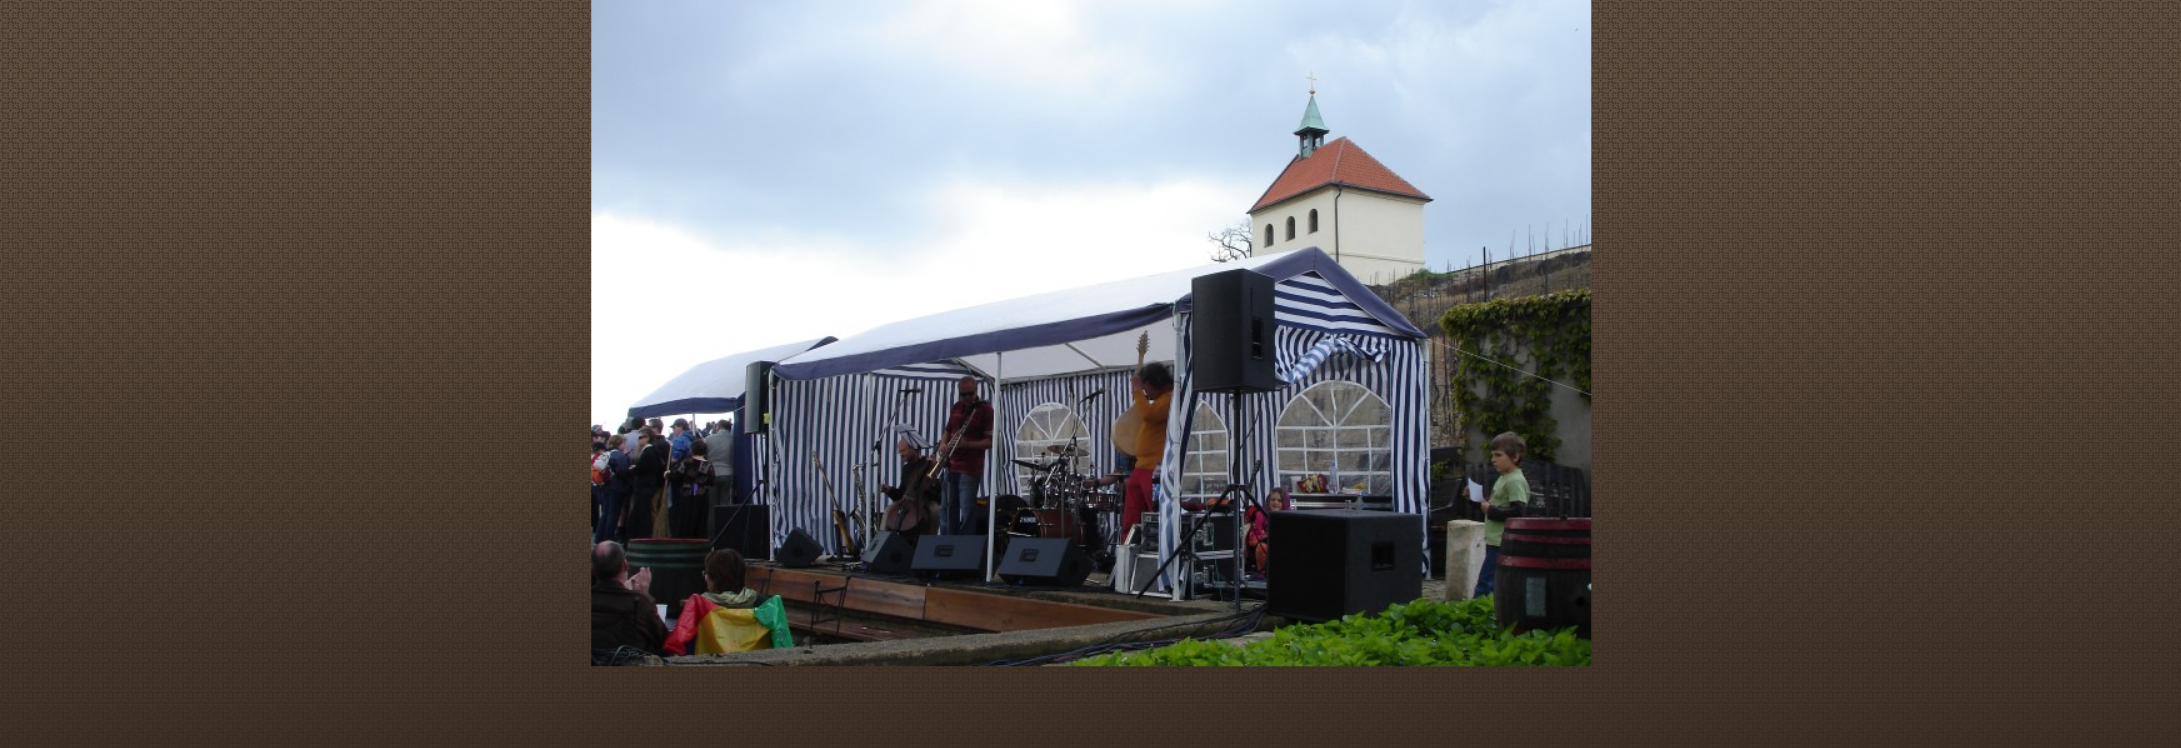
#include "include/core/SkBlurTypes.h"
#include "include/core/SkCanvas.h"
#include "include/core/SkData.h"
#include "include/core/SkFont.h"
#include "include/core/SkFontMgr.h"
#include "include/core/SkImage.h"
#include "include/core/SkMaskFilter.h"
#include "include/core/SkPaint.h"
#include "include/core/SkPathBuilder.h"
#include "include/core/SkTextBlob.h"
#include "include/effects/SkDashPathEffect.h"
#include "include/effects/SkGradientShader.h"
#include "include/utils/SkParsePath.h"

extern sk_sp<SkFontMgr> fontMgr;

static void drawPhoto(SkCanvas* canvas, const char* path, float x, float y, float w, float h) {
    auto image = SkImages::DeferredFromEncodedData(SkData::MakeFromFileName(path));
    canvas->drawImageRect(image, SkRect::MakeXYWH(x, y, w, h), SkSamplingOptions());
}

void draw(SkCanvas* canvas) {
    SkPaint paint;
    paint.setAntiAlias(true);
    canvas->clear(0xFFFFFFFF);
    drawPhoto(canvas, "assets/img1.png", 0, 0, 2181, 748);
    drawPhoto(canvas, "assets/img2.png", 591, 0, 1001, 667);
}
